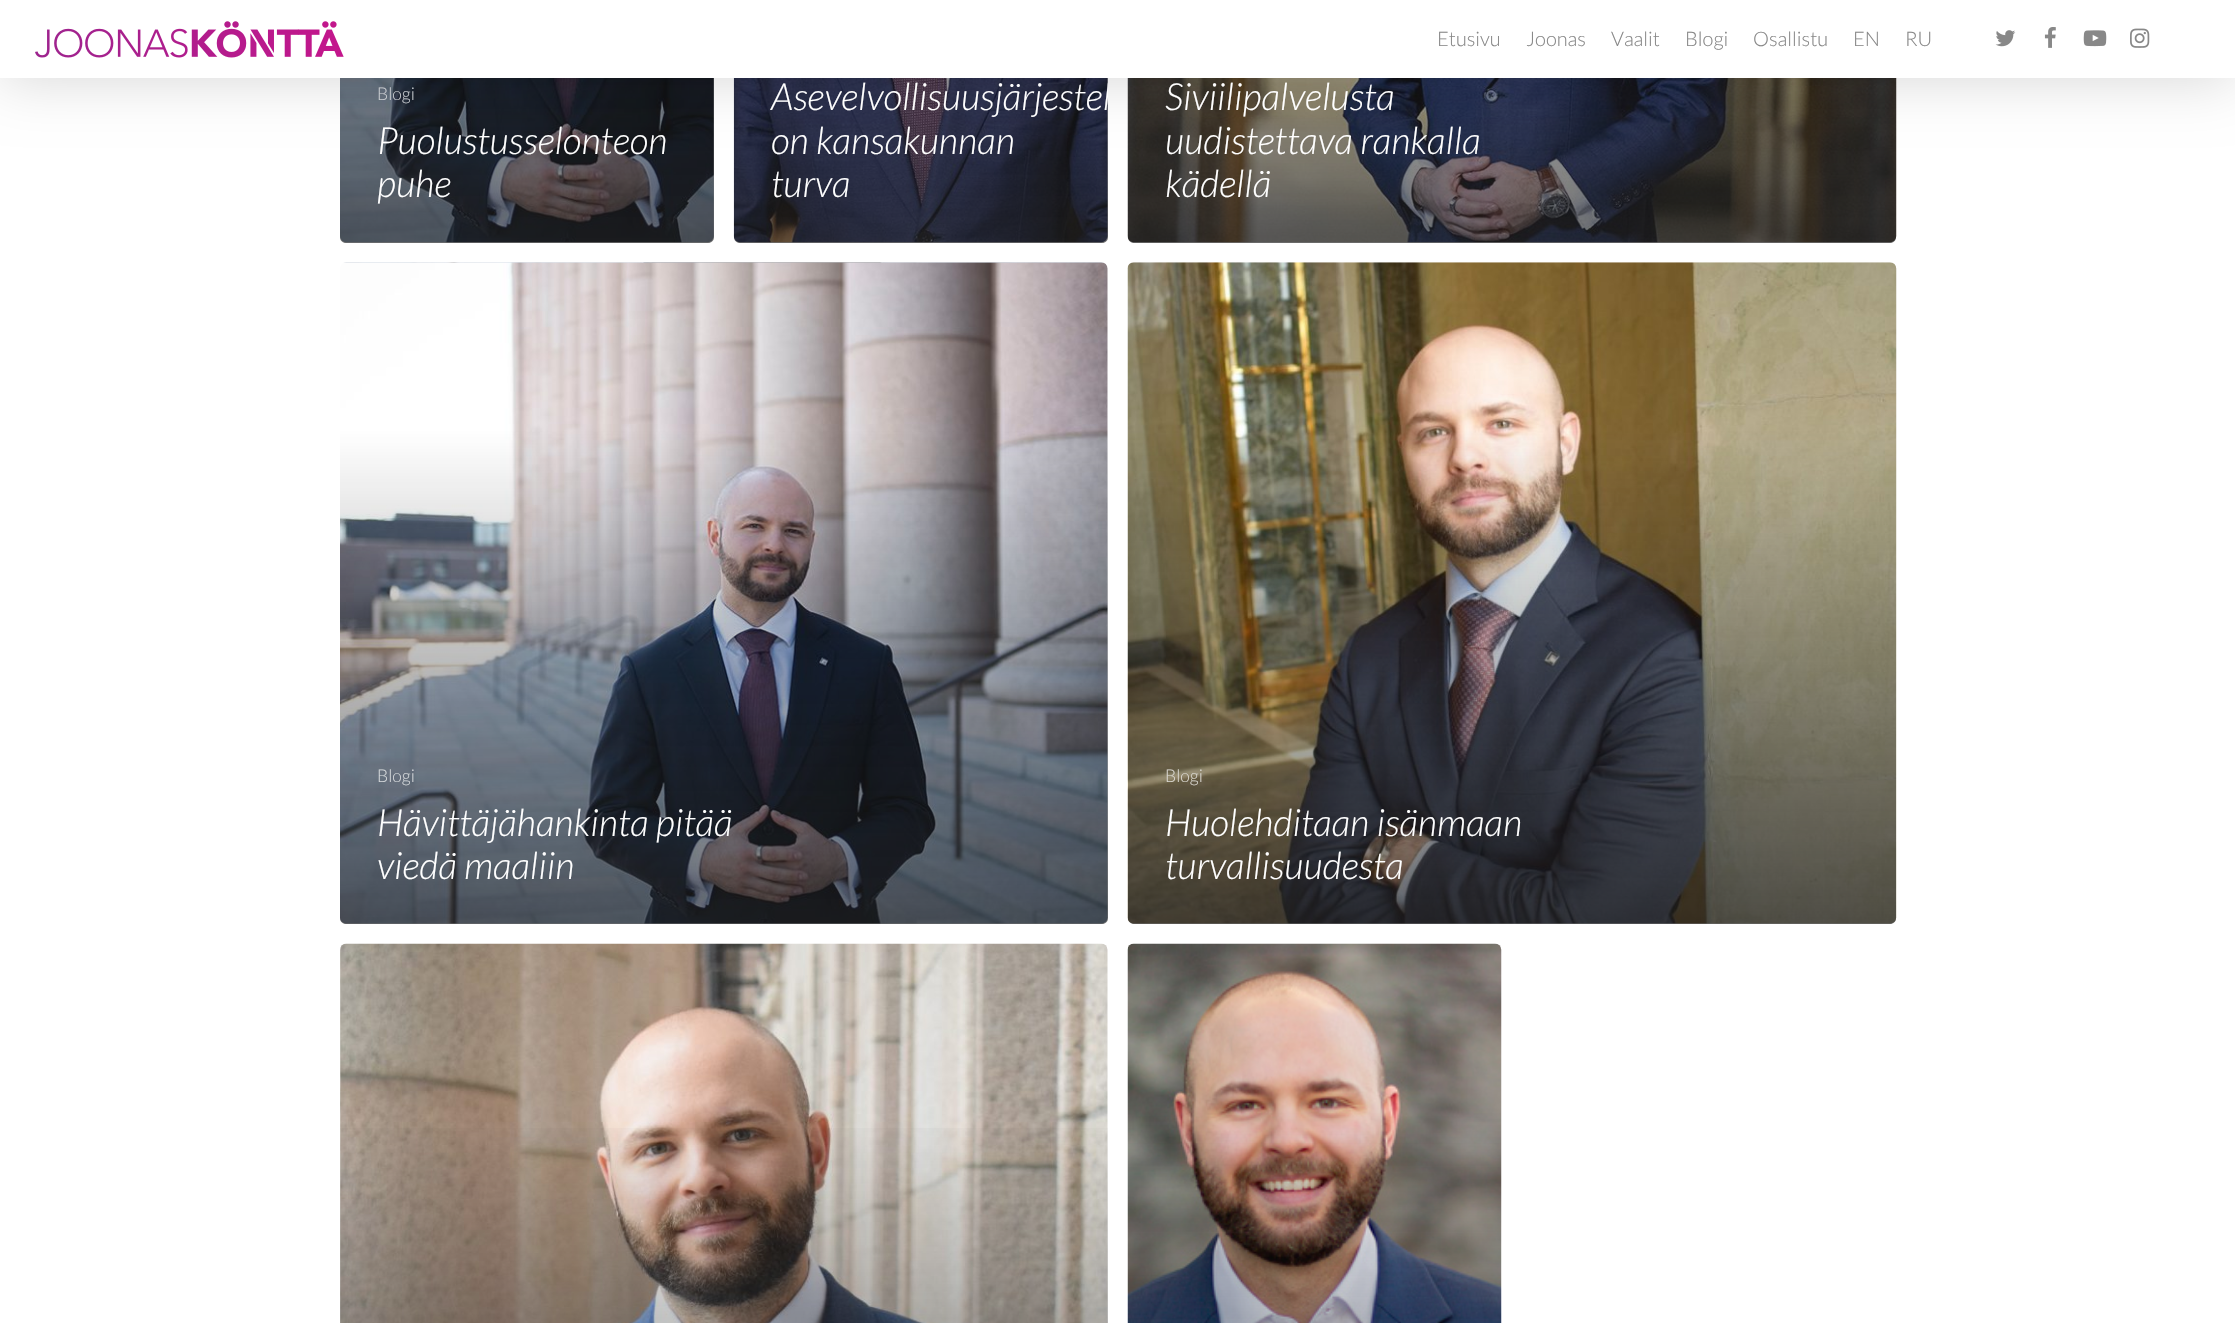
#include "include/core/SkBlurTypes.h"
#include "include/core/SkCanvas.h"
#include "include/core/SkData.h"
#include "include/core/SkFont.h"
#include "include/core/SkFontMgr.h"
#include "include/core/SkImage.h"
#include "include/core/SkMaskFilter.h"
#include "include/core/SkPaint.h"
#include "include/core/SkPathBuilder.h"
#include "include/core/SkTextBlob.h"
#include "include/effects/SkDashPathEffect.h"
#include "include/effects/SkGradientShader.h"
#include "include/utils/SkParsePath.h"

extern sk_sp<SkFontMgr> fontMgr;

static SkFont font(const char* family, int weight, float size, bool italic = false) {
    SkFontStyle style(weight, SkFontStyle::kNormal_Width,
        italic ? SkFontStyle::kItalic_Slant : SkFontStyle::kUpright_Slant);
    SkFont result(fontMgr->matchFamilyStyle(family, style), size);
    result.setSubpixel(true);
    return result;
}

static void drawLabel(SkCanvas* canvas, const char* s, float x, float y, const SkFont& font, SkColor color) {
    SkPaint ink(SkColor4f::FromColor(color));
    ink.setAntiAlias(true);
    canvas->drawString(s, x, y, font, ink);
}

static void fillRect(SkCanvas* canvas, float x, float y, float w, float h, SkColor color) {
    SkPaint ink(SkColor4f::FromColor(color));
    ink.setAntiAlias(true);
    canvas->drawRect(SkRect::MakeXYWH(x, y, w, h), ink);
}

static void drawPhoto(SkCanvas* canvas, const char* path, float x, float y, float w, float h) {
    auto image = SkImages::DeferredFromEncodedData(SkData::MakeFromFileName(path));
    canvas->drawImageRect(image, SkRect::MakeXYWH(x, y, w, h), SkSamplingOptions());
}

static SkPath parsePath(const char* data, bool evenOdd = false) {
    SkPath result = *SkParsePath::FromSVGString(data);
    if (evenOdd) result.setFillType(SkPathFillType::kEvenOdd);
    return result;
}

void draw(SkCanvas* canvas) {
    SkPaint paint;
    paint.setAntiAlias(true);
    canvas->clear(0xFFFFFFFF);
    drawPhoto(canvas, "assets/img6.png", 340, 78, 374, 165);
    {
        const SkColor colors[] = {0x00232323, 0xA6232323};
        const float stops[] = {0, 1};
        const SkPoint ends[] = {{528, -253}, {528, 246}};
        paint.setShader(SkGradientShader::MakeLinear(ends, colors, stops, 2, SkTileMode::kClamp));
        paint.setAlpha(255);
    }
    canvas->drawPath(parsePath("M340-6H714V237C714 240.5 711.5 243 708 243H346C342.5 243 340 240.5 340 237Z"), paint);
    drawPhoto(canvas, "assets/img7.png", 733, 78, 375, 165);
    {
        const SkColor colors[] = {0x00232323, 0xA6232323};
        const float stops[] = {0, 1};
        const SkPoint ends[] = {{921, -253}, {921, 246}};
        paint.setShader(SkGradientShader::MakeLinear(ends, colors, stops, 2, SkTileMode::kClamp));
        paint.setAlpha(255);
    }
    canvas->drawPath(parsePath("M734-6H1108V237C1108 240.5 1105.5 243 1102 243H740C736.5 243 734 240.5 734 237Z"), paint);
    drawPhoto(canvas, "assets/img8.png", 1127, 78, 770, 165);
    {
        const SkColor colors[] = {0x00232323, 0xA6232323};
        const float stops[] = {0, 1};
        const SkPoint ends[] = {{1514, -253}, {1514, 246}};
        paint.setShader(SkGradientShader::MakeLinear(ends, colors, stops, 2, SkTileMode::kClamp));
        paint.setAlpha(255);
    }
    canvas->drawPath(parsePath("M1128-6H1896V237C1896 240.5 1893.5 243 1890 243H1134C1130.5 243 1128 240.5 1128 237Z"), paint);
    paint.setShader(nullptr);
    paint.setColor(0x26000000);
    paint.setMaskFilter(SkMaskFilter::MakeBlur(kNormal_SkBlurStyle, 28));
    canvas->drawRect(SkRect::MakeXYWH(0, 4, 2235, 77), paint);
    paint.setMaskFilter(nullptr);
    fillRect(canvas, 0, 0, 2235, 78, 0xFFFFFFFF);
    drawPhoto(canvas, "assets/img1.png", 35, 21, 309, 37);
    SkFont font1 = font("Lato", 300, 20);
    drawLabel(canvas, "Etusivu", 1437, 46, font1, 0xFF888888);
    drawLabel(canvas, "Joonas", 1526, 46, font1, 0xFF888888);
    drawLabel(canvas, "Vaalit", 1611, 46, font1, 0xFF888888);
    drawLabel(canvas, "Blogi", 1685, 46, font1, 0xFF888888);
    drawLabel(canvas, "Osallistu", 1753, 46, font1, 0xFF888888);
    drawLabel(canvas, "EN", 1853, 46, font1, 0xFF888888);
    drawLabel(canvas, "RU", 1905, 46, font1, 0xFF888888);
    drawPhoto(canvas, "assets/img2.png", 1995, 30, 21, 17);
    drawPhoto(canvas, "assets/img3.png", 2044, 27, 12, 21);
    drawPhoto(canvas, "assets/img4.png", 2083, 30, 24, 17);
    drawPhoto(canvas, "assets/img5.png", 2130, 28, 20, 20);
    SkFont font2 = font("Lato", 300, 17.5f);
    drawLabel(canvas, "Blogi", 377, 100, font2, 0xFFC9CCD0);
    SkFont font3 = font("Lato", 300, 37.5f, true);
    drawLabel(canvas, "Puolustusselonteon", 377, 154, font3, 0xFFFFFFFF);
    drawLabel(canvas, "puhe", 377, 197, font3, 0xFFFFFFFF);
    canvas->save();
    canvas->clipPath(parsePath("M740-420H1102C1105.5-420 1108-417.5 1108-414V237C1108 240.5 1105.5 243 1102 243H740C736.5 243 734 240.5 734 237V-414C734-417.5 736.5-420 740-420Z"), true);
    drawLabel(canvas, "Asevelvollisuusjärjestel", 771, 110, font3, 0xFFFFFFFF);
    canvas->restore();
    drawLabel(canvas, "on kansakunnan", 771, 154, font3, 0xFFFFFFFF);
    drawLabel(canvas, "turva", 771, 197, font3, 0xFFFFFFFF);
    drawLabel(canvas, "Siviilipalvelusta", 1165, 110, font3, 0xFFFFFFFF);
    drawLabel(canvas, "uudistettava rankalla", 1165, 154, font3, 0xFFFFFFFF);
    drawLabel(canvas, "kädellä", 1165, 197, font3, 0xFFFFFFFF);
    drawPhoto(canvas, "assets/img9.png", 340, 262, 768, 662);
    {
        const SkColor colors[] = {0x00232323, 0xA6232323};
        const float stops[] = {0, 1};
        const SkPoint ends[] = {{726, 429}, {726, 928}};
        paint.setShader(SkGradientShader::MakeLinear(ends, colors, stops, 2, SkTileMode::kClamp));
        paint.setAlpha(255);
    }
    canvas->drawPath(parsePath("M340 429H1108V918C1108 921.5 1105.5 924 1102 924H346C342.5 924 340 921.5 340 918Z"), paint);
    drawLabel(canvas, "Blogi", 377, 782, font2, 0xFFD4D7DA);
    drawLabel(canvas, "Hävittäjähankinta pitää", 377, 836, font3, 0xFFFFFFFF);
    drawLabel(canvas, "viedä maaliin", 377, 879, font3, 0xFFFFFFFF);
    drawPhoto(canvas, "assets/img10.png", 1127, 262, 770, 662);
    {
        const SkColor colors[] = {0x00232323, 0xA6232323};
        const float stops[] = {0, 1};
        const SkPoint ends[] = {{1514, 429}, {1514, 928}};
        paint.setShader(SkGradientShader::MakeLinear(ends, colors, stops, 2, SkTileMode::kClamp));
        paint.setAlpha(255);
    }
    canvas->drawPath(parsePath("M1128 429H1896V918C1896 921.5 1893.5 924 1890 924H1134C1130.5 924 1128 921.5 1128 918Z"), paint);
    drawLabel(canvas, "Blogi", 1165, 782, font2, 0xFFD9D7D0);
    drawLabel(canvas, "Huolehditaan isänmaan", 1165, 836, font3, 0xFFFFFFFF);
    drawLabel(canvas, "turvallisuudesta", 1165, 879, font3, 0xFFFFFFFF);
    drawPhoto(canvas, "assets/img11.png", 340, 943, 768, 380);
    {
        const SkColor colors[] = {0x00232323, 0xA6232323};
        const float stops[] = {0, 1};
        const SkPoint ends[] = {{726, 1111}, {726, 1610}};
        paint.setShader(SkGradientShader::MakeLinear(ends, colors, stops, 2, SkTileMode::kClamp));
        paint.setAlpha(255);
    }
    canvas->drawRect(SkRect::MakeXYWH(340, 1128, 768, 195), paint);
    drawPhoto(canvas, "assets/img12.png", 1127, 943, 375, 380);
}
